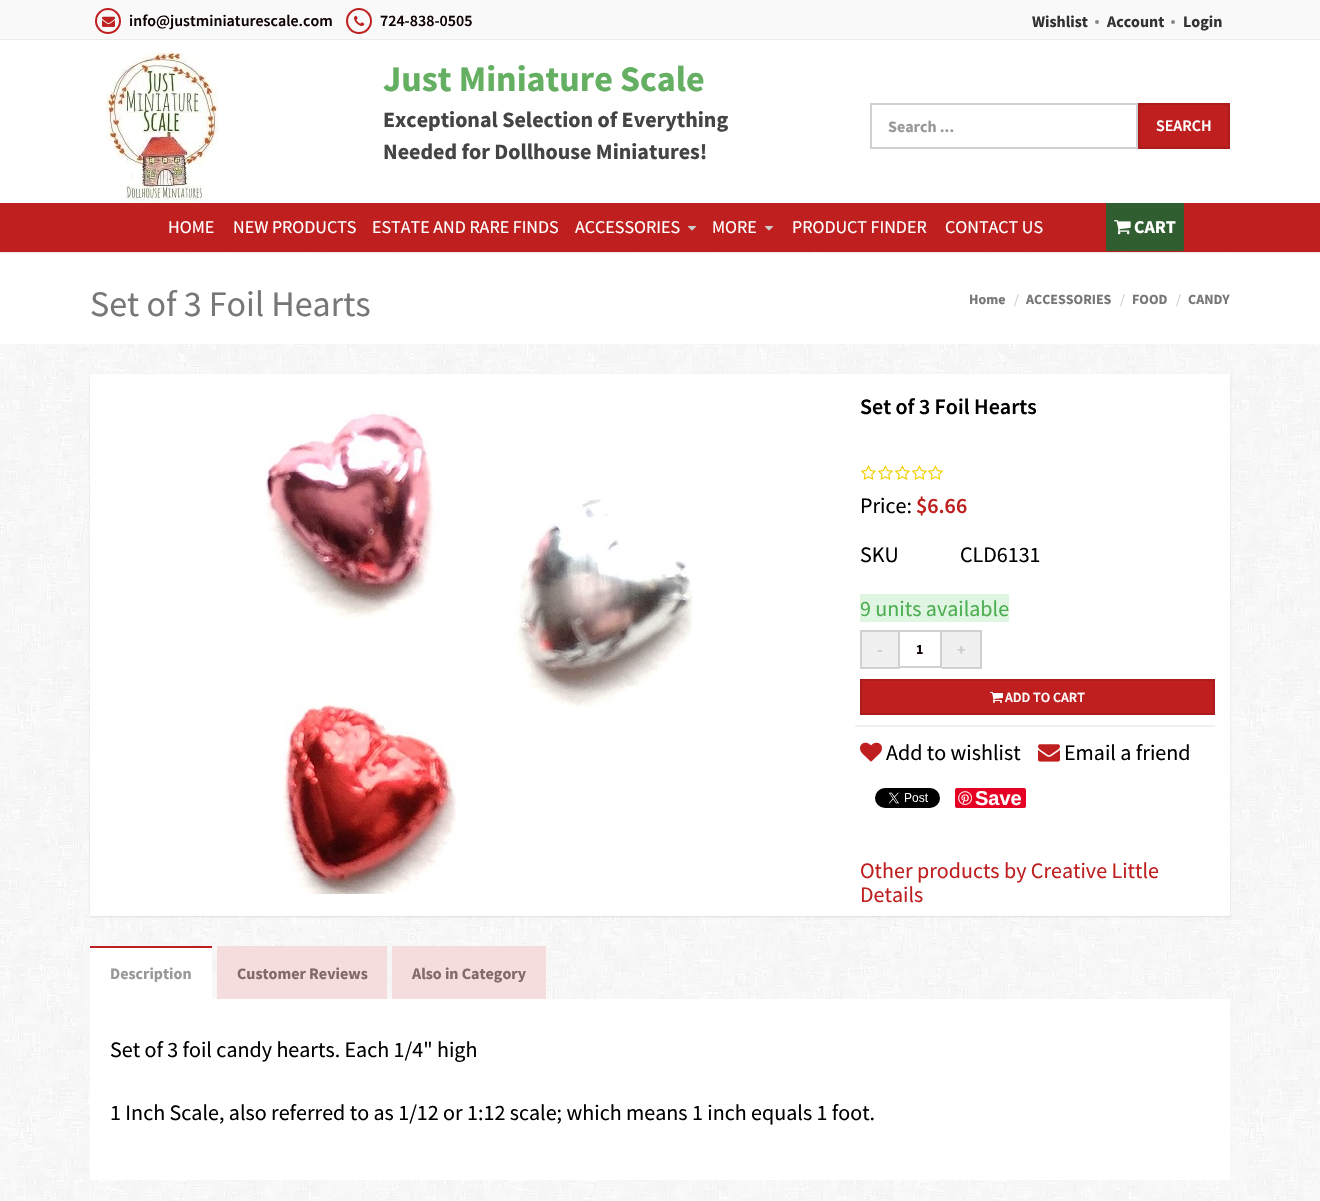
#include "include/core/SkBlurTypes.h"
#include "include/core/SkCanvas.h"
#include "include/core/SkData.h"
#include "include/core/SkFont.h"
#include "include/core/SkFontMgr.h"
#include "include/core/SkImage.h"
#include "include/core/SkMaskFilter.h"
#include "include/core/SkPaint.h"
#include "include/core/SkPathBuilder.h"
#include "include/core/SkTextBlob.h"
#include "include/effects/SkDashPathEffect.h"
#include "include/effects/SkGradientShader.h"
#include "include/utils/SkParsePath.h"

extern sk_sp<SkFontMgr> fontMgr;

static SkFont font(const char* family, int weight, float size, bool italic = false) {
    SkFontStyle style(weight, SkFontStyle::kNormal_Width,
        italic ? SkFontStyle::kItalic_Slant : SkFontStyle::kUpright_Slant);
    SkFont result(fontMgr->matchFamilyStyle(family, style), size);
    result.setSubpixel(true);
    return result;
}

static void drawLabel(SkCanvas* canvas, const char* s, float x, float y, const SkFont& font, SkColor color) {
    SkPaint ink(SkColor4f::FromColor(color));
    ink.setAntiAlias(true);
    canvas->drawString(s, x, y, font, ink);
}

static void fillRect(SkCanvas* canvas, float x, float y, float w, float h, SkColor color) {
    SkPaint ink(SkColor4f::FromColor(color));
    ink.setAntiAlias(true);
    canvas->drawRect(SkRect::MakeXYWH(x, y, w, h), ink);
}

static void fillRRect(SkCanvas* canvas, float x, float y, float w, float h, float radius, SkColor color) {
    SkPaint ink(SkColor4f::FromColor(color));
    ink.setAntiAlias(true);
    canvas->drawRoundRect(SkRect::MakeXYWH(x, y, w, h), radius, radius, ink);
}

static void drawPhoto(SkCanvas* canvas, const char* path, float x, float y, float w, float h) {
    auto image = SkImages::DeferredFromEncodedData(SkData::MakeFromFileName(path));
    canvas->drawImageRect(image, SkRect::MakeXYWH(x, y, w, h), SkSamplingOptions());
}

void draw(SkCanvas* canvas) {
    SkPaint paint;
    paint.setAntiAlias(true);
    canvas->clear(0xFFFFFFFF);
    drawPhoto(canvas, "assets/img1.png", 0, 253, 1320, 948);
    fillRect(canvas, 0, 0, 1320, 39, 0xFFF9F9F9);
    fillRect(canvas, 0, 39, 1320, 1, 0xFFEBEBEB);
    paint.setStroke(true);
    paint.setStrokeWidth(2);
    paint.setColor(0xFFBF1F1F);
    canvas->drawCircle(108, 21, 12, paint);
    drawPhoto(canvas, "assets/img2.png", 102, 16, 13, 11);
    SkFont font1 = font("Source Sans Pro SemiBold", 600, 16);
    drawLabel(canvas, "info@justminiaturescale.com", 129, 26, font1, 0xFF0E0202);
    canvas->drawCircle(359, 21, 12, paint);
    drawPhoto(canvas, "assets/img3.png", 354, 15, 11, 11);
    drawLabel(canvas, "724-838-0505", 380, 26, font1, 0xFF0E0202);
    SkFont font2 = font("Source Sans Pro", 700, 16);
    drawLabel(canvas, "Wishlist", 1032, 27, font2, 0xFF333333);
    paint.setStroke(false);
    paint.setColor(0xFF888888);
    canvas->drawCircle(1097, 22, 2, paint);
    drawLabel(canvas, "Account", 1107, 27, font2, 0xFF333333);
    canvas->drawCircle(1173, 22, 2, paint);
    drawLabel(canvas, "Login", 1183, 27, font2, 0xFF333333);
    drawPhoto(canvas, "assets/img4.png", 106, 53, 112, 150);
    SkFont font3 = font("Source Sans Pro", 700, 36);
    drawLabel(canvas, "Just Miniature Scale", 383, 91, font3, 0xFF64AF62);
    SkFont font4 = font("Source Sans Pro", 700, 22);
    drawLabel(canvas, "Exceptional Selection of Everything", 383, 127, font4, 0xFF444444);
    drawLabel(canvas, "Needed for Dollhouse Miniatures!", 383, 159, font4, 0xFF444444);
    paint.setStroke(true);
    paint.setColor(0xFFD0D0D0);
    canvas->drawRect(SkRect::MakeXYWH(871, 104, 266, 44), paint);
    drawLabel(canvas, "Search ...", 888, 132, font2, 0xFF999999);
    paint.setStroke(false);
    paint.setColor(0xFFBF1F1F);
    canvas->drawRect(SkRect::MakeXYWH(1139, 104, 90, 44), paint);
    paint.setStroke(true);
    paint.setColor(0xFFAC1C1C);
    canvas->drawRect(SkRect::MakeXYWH(1139, 104, 90, 44), paint);
    drawLabel(canvas, "SEARCH", 1156, 131, font1, 0xFFFFFFFF);
    fillRect(canvas, 0, 203, 1320, 49, 0xFFBF1F1F);
    fillRect(canvas, 0, 252, 1320, 1, 0xFFEBEBEB);
    SkFont font5 = font("Source Sans Pro", 400, 18);
    drawLabel(canvas, "HOME", 168, 233, font5, 0xFFFFFFFF);
    drawLabel(canvas, "NEW PRODUCTS", 233, 233, font5, 0xFFFFFFFF);
    drawLabel(canvas, "ESTATE AND RARE FINDS", 372, 233, font5, 0xFFFFFFFF);
    drawLabel(canvas, "ACCESSORIES", 575, 233, font5, 0xFFFFFFFF);
    drawPhoto(canvas, "assets/img5.png", 688, 226, 8, 5);
    drawLabel(canvas, "MORE", 712, 233, font5, 0xFFFFFFFF);
    drawPhoto(canvas, "assets/img5.png", 765, 226, 8, 5);
    drawLabel(canvas, "PRODUCT FINDER", 792, 233, font5, 0xFFFFFFFF);
    drawLabel(canvas, "CONTACT US", 945, 233, font5, 0xFFFFFFFF);
    fillRect(canvas, 1106, 203, 78, 48, 0xFF315E30);
    drawPhoto(canvas, "assets/img6.png", 1114, 220, 17, 15);
    SkFont font6 = font("Source Sans Pro", 700, 18);
    drawLabel(canvas, "CART", 1134, 233, font6, 0xFFFFFFFF);
    fillRect(canvas, 0, 254, 1320, 90, 0xFFFFFFFF);
    SkFont font7 = font("Source Sans Pro", 400, 36);
    drawLabel(canvas, "Set of 3 Foil Hearts", 90, 316, font7, 0xFF777777);
    SkFont font8 = font("Source Sans Pro", 700, 14);
    drawLabel(canvas, "Home", 969, 304, font8, 0xFF777777);
    SkFont font9 = font("Source Sans Pro", 400, 14);
    drawLabel(canvas, "/", 1014, 304, font9, 0xFFCCCCCC);
    drawLabel(canvas, "ACCESSORIES", 1026, 304, font8, 0xFF777777);
    drawLabel(canvas, "/", 1120, 304, font9, 0xFFCCCCCC);
    drawLabel(canvas, "FOOD", 1132, 304, font8, 0xFF777777);
    drawLabel(canvas, "/", 1176, 304, font9, 0xFFCCCCCC);
    drawLabel(canvas, "CANDY", 1188, 304, font8, 0xFF777777);
    paint.setStroke(false);
    paint.setColor(0x1A000000);
    paint.setMaskFilter(SkMaskFilter::MakeBlur(kNormal_SkBlurStyle, 1));
    canvas->drawRect(SkRect::MakeXYWH(90, 375, 1140, 542), paint);
    paint.setMaskFilter(nullptr);
    fillRect(canvas, 90, 374, 1140, 542, 0xFFFFFFFF);
    drawPhoto(canvas, "assets/img7.png", 263, 410, 431, 484);
    SkFont font10 = font("Source Sans Pro SemiBold", 600, 22);
    drawLabel(canvas, "Set of 3 Foil Hearts", 860, 414, font10, 0xFF000000);
    drawPhoto(canvas, "assets/img8.png", 861, 465, 15, 15);
    drawPhoto(canvas, "assets/img8.png", 878, 465, 15, 15);
    drawPhoto(canvas, "assets/img8.png", 895, 465, 15, 15);
    drawPhoto(canvas, "assets/img8.png", 912, 465, 15, 15);
    drawPhoto(canvas, "assets/img8.png", 928, 465, 15, 15);
    SkFont font11 = font("Source Sans Pro", 400, 22);
    drawLabel(canvas, "Price:", 860, 513, font11, 0xFF000000);
    drawLabel(canvas, "$6.66", 916, 513, font10, 0xFFBF1F1F);
    drawLabel(canvas, "SKU", 860, 562, font11, 0xFF000000);
    drawLabel(canvas, "CLD6131", 960, 562, font11, 0xFF000000);
    fillRect(canvas, 860, 594, 149, 28, 0xFFE1F5E3);
    drawLabel(canvas, "9 units available", 860, 616, font11, 0xFF4BAE4F);
    paint.setColor(0xFFF0F0F0);
    canvas->drawRect(SkRect::MakeXYWH(861, 631, 38, 37), paint);
    paint.setStroke(true);
    paint.setColor(0xFFD0D0D0);
    canvas->drawRect(SkRect::MakeXYWH(861, 631, 38, 37), paint);
    drawLabel(canvas, "-", 877, 655, font2, 0xFFCCCCCC);
    canvas->drawRect(SkRect::MakeXYWH(899, 631, 42, 36), paint);
    drawLabel(canvas, "1", 916, 654, font8, 0xFF0E0202);
    fillRect(canvas, 942, 632, 38, 35, 0xFFF0F0F0);
    fillRect(canvas, 942, 630, 40, 2, 0xFFD0D0D0);
    fillRect(canvas, 980, 630, 2, 39, 0xFFD0D0D0);
    fillRect(canvas, 942, 667, 40, 2, 0xFFD0D0D0);
    drawLabel(canvas, "+", 957, 655, font2, 0xFFCCCCCC);
    paint.setStroke(false);
    paint.setColor(0xFFBF1F1F);
    canvas->drawRect(SkRect::MakeXYWH(861, 680, 353, 34), paint);
    paint.setStroke(true);
    paint.setColor(0xFFAC1C1C);
    canvas->drawRect(SkRect::MakeXYWH(861, 680, 353, 34), paint);
    drawPhoto(canvas, "assets/img9.png", 990, 692, 13, 11);
    SkFont font12 = font("Source Sans Pro SemiBold", 600, 14);
    drawLabel(canvas, "ADD TO CART", 1005, 702, font12, 0xFFFFFFFF);
    fillRect(canvas, 855, 725, 360, 2, 0xFFF0F0F0);
    drawPhoto(canvas, "assets/img10.png", 860, 742, 22, 20);
    drawLabel(canvas, "Add to wishlist", 886, 760, font11, 0xFF000000);
    drawPhoto(canvas, "assets/img11.png", 1038, 744, 22, 18);
    drawLabel(canvas, "Email a friend", 1064, 760, font11, 0xFF000000);
    drawPhoto(canvas, "assets/img12.png", 875, 788, 65, 20);
    fillRRect(canvas, 955, 788, 71, 20, 2, 0xFFE60023);
    drawPhoto(canvas, "assets/img13.png", 958, 791, 14, 14);
    SkFont font13 = font("Liberation Sans", 700, 20);
    drawLabel(canvas, "Save", 975, 805, font13, 0xFFFFFFFF);
    drawLabel(canvas, "Other products by Creative Little", 860, 878, font11, 0xFFBF1F1F);
    drawLabel(canvas, "Details", 860, 902, font11, 0xFFBF1F1F);
    fillRect(canvas, 90, 948, 122, 51, 0xFFFFFFFF);
    fillRect(canvas, 90, 946, 122, 2, 0xFFBF1F1F);
    drawLabel(canvas, "Description", 110, 979, font2, 0xFF999999);
    fillRect(canvas, 217, 946, 170, 53, 0xFFF5DDDD);
    drawLabel(canvas, "Customer Reviews", 237, 979, font2, 0xFF826A6A);
    fillRect(canvas, 392, 946, 154, 53, 0xFFF5DDDD);
    drawLabel(canvas, "Also in Category", 412, 979, font2, 0xFF826A6A);
    fillRect(canvas, 90, 999, 1140, 181, 0xFFFFFFFF);
    drawLabel(canvas, "Set of 3 foil candy hearts. Each 1/4\" high", 110, 1057, font11, 0xFF000000);
    drawLabel(canvas, "1 Inch Scale, also referred to as 1/12 or 1:12 scale; which means 1 inch equals 1 foot.", 110, 1120, font11, 0xFF000000);
}
